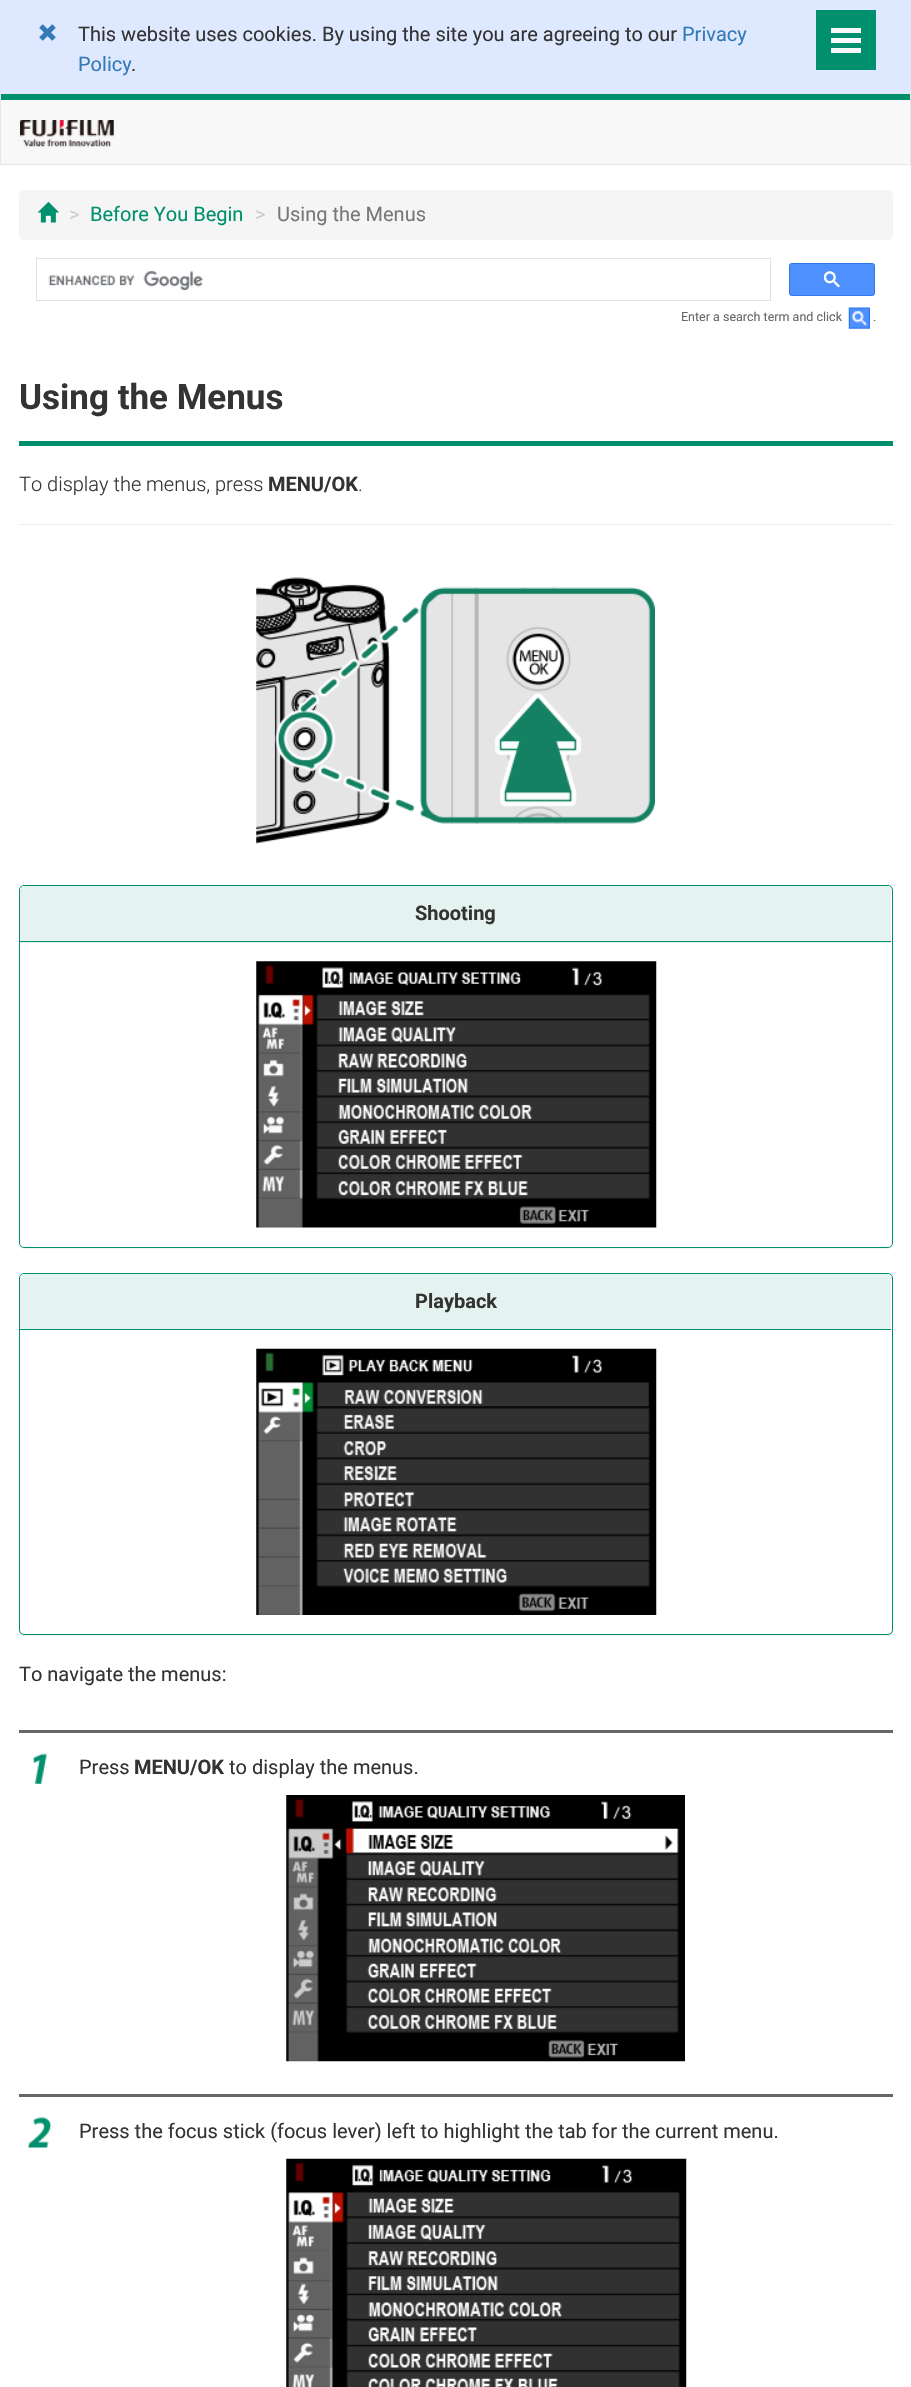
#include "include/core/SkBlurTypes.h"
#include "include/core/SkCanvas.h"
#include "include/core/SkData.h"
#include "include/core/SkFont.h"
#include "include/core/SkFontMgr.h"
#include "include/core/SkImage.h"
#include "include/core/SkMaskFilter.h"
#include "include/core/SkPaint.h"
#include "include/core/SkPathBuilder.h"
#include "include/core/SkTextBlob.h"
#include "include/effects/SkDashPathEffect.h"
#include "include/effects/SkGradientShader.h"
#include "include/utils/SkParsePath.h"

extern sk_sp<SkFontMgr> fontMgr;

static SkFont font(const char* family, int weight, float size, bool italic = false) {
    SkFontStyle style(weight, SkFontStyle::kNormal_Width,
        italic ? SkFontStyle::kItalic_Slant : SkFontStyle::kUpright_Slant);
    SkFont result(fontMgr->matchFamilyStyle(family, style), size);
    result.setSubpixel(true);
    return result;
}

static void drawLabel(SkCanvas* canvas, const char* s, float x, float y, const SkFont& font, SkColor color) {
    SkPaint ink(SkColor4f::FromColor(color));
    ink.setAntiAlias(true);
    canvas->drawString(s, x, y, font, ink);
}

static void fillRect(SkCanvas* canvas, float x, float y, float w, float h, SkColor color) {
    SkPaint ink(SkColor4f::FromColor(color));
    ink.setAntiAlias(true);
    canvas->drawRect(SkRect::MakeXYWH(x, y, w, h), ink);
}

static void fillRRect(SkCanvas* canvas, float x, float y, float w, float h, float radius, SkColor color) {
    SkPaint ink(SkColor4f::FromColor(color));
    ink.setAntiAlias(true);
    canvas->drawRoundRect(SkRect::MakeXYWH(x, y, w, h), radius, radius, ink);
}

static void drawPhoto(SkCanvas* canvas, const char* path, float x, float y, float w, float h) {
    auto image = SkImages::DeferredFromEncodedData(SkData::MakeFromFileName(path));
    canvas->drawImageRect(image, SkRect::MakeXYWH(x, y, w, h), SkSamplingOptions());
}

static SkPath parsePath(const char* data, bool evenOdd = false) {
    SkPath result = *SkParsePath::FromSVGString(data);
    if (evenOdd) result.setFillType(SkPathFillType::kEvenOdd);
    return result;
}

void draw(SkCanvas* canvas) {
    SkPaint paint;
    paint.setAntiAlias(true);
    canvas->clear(0xFFFFFFFF);
    fillRect(canvas, 0, 0, 911, 93, 0xFFDEE8FF);
    fillRect(canvas, 816, 10, 60, 60, 0xFF00906D);
    fillRect(canvas, 831, 38, 30, 5, 0xFFF8F8F8);
    fillRect(canvas, 831, 28, 30, 5, 0xFFF8F8F8);
    fillRect(canvas, 831, 48, 30, 5, 0xFFF8F8F8);
    drawPhoto(canvas, "assets/img1.png", 39, 24, 17, 17);
    SkFont font1 = font("Roboto", 400, 20);
    drawLabel(canvas, "This website uses cookies. By using the site you are agreeing to our", 78, 41, font1, 0xFF333333);
    drawLabel(canvas, "Privacy", 682, 41, font1, 0xFF337AB7);
    drawLabel(canvas, "Policy", 78, 71, font1, 0xFF337AB7);
    drawLabel(canvas, ".", 131, 71, font1, 0xFF333333);
    fillRect(canvas, 1, 100, 909, 64, 0xFFF8F8F8);
    fillRect(canvas, 0, 94, 911, 6, 0xFF01906D);
    paint.setStroke(true);
    paint.setStrokeWidth(1);
    paint.setColor(0xFFE7E7E7);
    canvas->drawRect(SkRect::MakeXYWH(0.5f, 93.5f, 910, 71), paint);
    drawPhoto(canvas, "assets/img2.png", 20, 120, 94, 27);
    fillRRect(canvas, 19, 190, 874, 50, 5, 0xFFF5F5F5);
    drawPhoto(canvas, "assets/img3.png", 37, 202, 22, 21);
    drawLabel(canvas, ">", 69, 221, font1, 0xFFCCCCCC);
    drawLabel(canvas, "Before You Begin", 90, 221, font1, 0xFF00906D);
    drawLabel(canvas, ">", 255, 221, font1, 0xFFCCCCCC);
    drawLabel(canvas, "Using the Menus", 277, 221, font1, 0xFF777777);
    paint.setColor(0xFFDFE1E5);
    canvas->drawRect(SkRect::MakeXYWH(36.5f, 258.5f, 734, 42), paint);
    drawPhoto(canvas, "assets/img4.png", 48, 271, 155, 19);
    paint.setStroke(false);
    paint.setColor(0xFF4D90FE);
    canvas->drawRoundRect(SkRect::MakeXYWH(789.5f, 263.5f, 85, 32), 2, 2, paint);
    paint.setStroke(true);
    paint.setColor(0xFF3079ED);
    canvas->drawRoundRect(SkRect::MakeXYWH(789.5f, 263.5f, 85, 32), 2, 2, paint);
    drawPhoto(canvas, "assets/img5.png", 824, 271, 16, 17);
    SkFont font2 = font("Roboto", 400, 12.5f);
    drawLabel(canvas, "Enter a search term and click", 681, 321, font2, 0xFF666666);
    drawPhoto(canvas, "assets/img6.png", 848, 307, 22, 22);
    drawLabel(canvas, ".", 873, 321, font2, 0xFF666666);
    fillRect(canvas, 19, 441, 874, 5, 0xFF00906D);
    SkFont font3 = font("Roboto", 700, 35);
    drawLabel(canvas, "Using the Menus", 19, 409, font3, 0xFF333333);
    SkFont font4 = font("Roboto", 300, 20);
    drawLabel(canvas, "To display the menus, press", 19, 491, font4, 0xFF333333);
    SkFont font5 = font("Roboto", 700, 20);
    drawLabel(canvas, "MENU/OK", 268, 491, font5, 0xFF333333);
    drawLabel(canvas, ".", 358, 491, font4, 0xFF333333);
    fillRect(canvas, 19, 524, 874, 1, 0xFFEEEEEE);
    drawPhoto(canvas, "assets/img7.png", 256, 577, 399, 267);
    paint.setStroke(false);
    paint.setColor(0x0D000000);
    paint.setMaskFilter(SkMaskFilter::MakeBlur(kNormal_SkBlurStyle, 0.5f));
    canvas->drawRoundRect(SkRect::MakeXYWH(19, 886, 874, 363), 5, 5, paint);
    paint.setMaskFilter(nullptr);
    paint.setColor(0xFFFFFFFF);
    canvas->drawRoundRect(SkRect::MakeXYWH(19.5f, 885.5f, 873, 362), 4.5f, 4.5f, paint);
    paint.setStroke(true);
    paint.setColor(0xFF00906D);
    canvas->drawRoundRect(SkRect::MakeXYWH(19.5f, 885.5f, 873, 362), 4.5f, 4.5f, paint);
    paint.setStroke(false);
    paint.setColor(0xFFE5F3F0);
    canvas->drawPath(parsePath("M24 886H887C889 886 891 888 891 890V943H20V890C20 888 22 886 24 886Z"), paint);
    fillRect(canvas, 20, 941, 871, 1, 0xFF00906D);
    drawLabel(canvas, "Shooting", 415, 920, font5, 0xFF333333);
    drawPhoto(canvas, "assets/img8.png", 256, 961, 401, 267);
    paint.setColor(0x0D000000);
    paint.setMaskFilter(SkMaskFilter::MakeBlur(kNormal_SkBlurStyle, 0.5f));
    canvas->drawRoundRect(SkRect::MakeXYWH(19, 1274, 874, 362), 5, 5, paint);
    paint.setMaskFilter(nullptr);
    paint.setColor(0xFFFFFFFF);
    canvas->drawRoundRect(SkRect::MakeXYWH(19.5f, 1273.5f, 873, 361), 4.5f, 4.5f, paint);
    paint.setStroke(true);
    paint.setColor(0xFF00906D);
    canvas->drawRoundRect(SkRect::MakeXYWH(19.5f, 1273.5f, 873, 361), 4.5f, 4.5f, paint);
    paint.setStroke(false);
    paint.setColor(0xFFE5F3F0);
    canvas->drawPath(parsePath("M24 1274H887C889 1274 891 1276 891 1278V1330H20V1278C20 1276 22 1274 24 1274Z"), paint);
    fillRect(canvas, 20, 1329, 871, 1, 0xFF00906D);
    drawLabel(canvas, "Playback", 415, 1308, font5, 0xFF333333);
    drawPhoto(canvas, "assets/img9.png", 256, 1348, 401, 267);
    drawLabel(canvas, "To navigate the menus:", 19, 1681, font1, 0xFF333333);
    drawPhoto(canvas, "assets/img10.png", 33, 1753, 15, 31);
    fillRect(canvas, 19, 1730, 874, 3, 0xFF666666);
    drawLabel(canvas, "Press", 79, 1774, font1, 0xFF333333);
    drawLabel(canvas, "MENU/OK", 134, 1774, font5, 0xFF333333);
    drawLabel(canvas, "to display the menus.", 229, 1774, font1, 0xFF333333);
    drawPhoto(canvas, "assets/img11.png", 286, 1795, 399, 267);
    drawPhoto(canvas, "assets/img12.png", 27, 2117, 25, 31);
    fillRect(canvas, 19, 2094, 874, 3, 0xFF666666);
    drawLabel(canvas, "Press the focus stick (focus lever) left to highlight the tab for the current menu.", 79, 2138, font1, 0xFF333333);
    drawPhoto(canvas, "assets/img13.png", 286, 2158, 401, 229);
}
